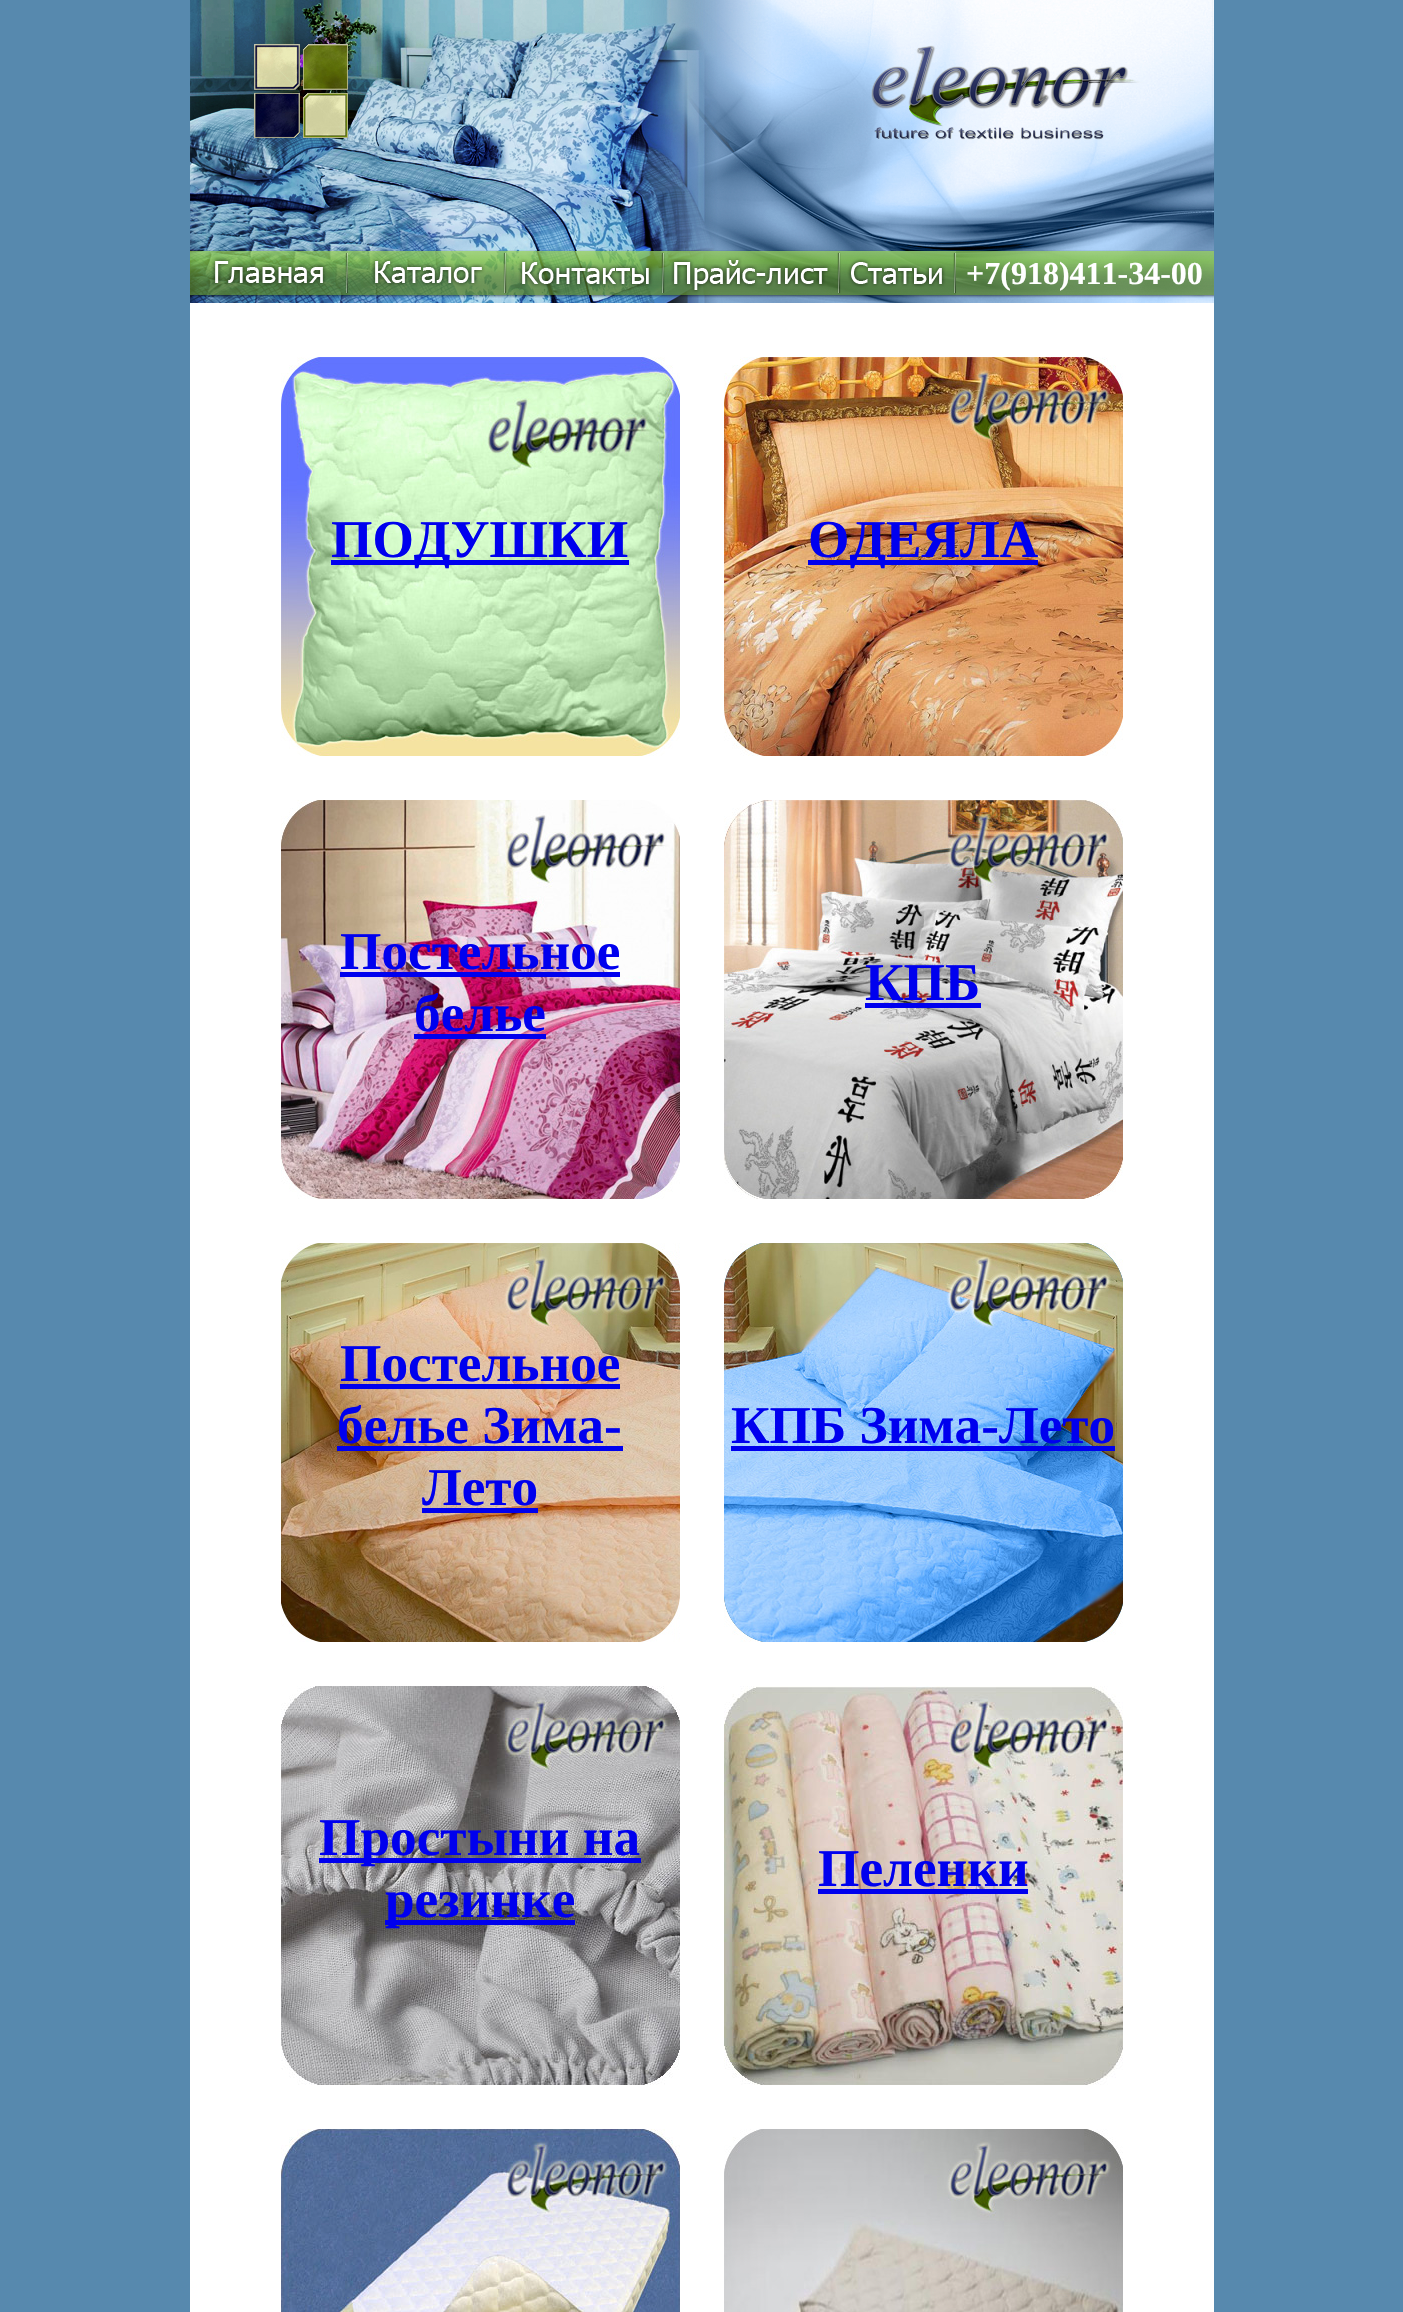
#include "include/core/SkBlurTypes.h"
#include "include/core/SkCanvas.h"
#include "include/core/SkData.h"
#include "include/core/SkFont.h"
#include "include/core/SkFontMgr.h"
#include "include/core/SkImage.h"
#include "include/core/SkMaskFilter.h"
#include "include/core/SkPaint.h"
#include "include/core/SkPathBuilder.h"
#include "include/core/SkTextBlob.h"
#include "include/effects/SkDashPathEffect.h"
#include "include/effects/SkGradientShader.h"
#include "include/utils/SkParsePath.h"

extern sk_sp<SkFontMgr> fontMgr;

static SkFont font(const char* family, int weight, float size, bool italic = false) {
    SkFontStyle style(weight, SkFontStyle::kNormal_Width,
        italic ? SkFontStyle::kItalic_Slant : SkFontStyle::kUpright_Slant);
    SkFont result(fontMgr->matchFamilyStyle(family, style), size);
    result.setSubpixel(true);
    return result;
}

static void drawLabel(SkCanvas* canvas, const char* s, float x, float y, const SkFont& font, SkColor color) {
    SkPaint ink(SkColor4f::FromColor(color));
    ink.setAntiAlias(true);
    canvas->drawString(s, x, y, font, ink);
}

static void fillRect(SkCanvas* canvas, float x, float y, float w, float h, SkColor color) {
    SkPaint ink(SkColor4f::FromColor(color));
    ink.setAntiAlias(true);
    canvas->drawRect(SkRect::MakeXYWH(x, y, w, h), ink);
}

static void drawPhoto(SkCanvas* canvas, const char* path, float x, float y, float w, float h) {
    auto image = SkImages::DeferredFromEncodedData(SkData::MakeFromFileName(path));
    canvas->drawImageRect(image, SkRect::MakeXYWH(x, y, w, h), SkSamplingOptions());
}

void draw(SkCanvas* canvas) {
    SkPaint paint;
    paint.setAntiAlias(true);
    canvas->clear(0xFF5789AE);
    fillRect(canvas, 190, 303, 1024, 2009, 0xFFFFFFFF);
    drawPhoto(canvas, "assets/img1.png", 190, 0, 1024, 303);
    drawPhoto(canvas, "assets/img2.png", 211, 252, 137, 42);
    drawPhoto(canvas, "assets/img3.png", 348, 251, 158, 44);
    drawPhoto(canvas, "assets/img4.png", 506, 251, 158, 44);
    drawPhoto(canvas, "assets/img5.png", 664, 251, 176, 44);
    drawPhoto(canvas, "assets/img6.png", 840, 251, 116, 44);
    SkFont font1 = font("Liberation Serif", 700, 32);
    drawLabel(canvas, "+7(918)411-34-00", 966, 284, font1, 0xFFFFFFFF);
    drawPhoto(canvas, "assets/img7.png", 281, 357, 399, 399);
    fillRect(canvas, 331, 560, 298, 5, 0xFF0000EE);
    SkFont font2 = font("Liberation Serif", 700, 53.25f);
    drawLabel(canvas, "ПОДУШКИ", 331, 557, font2, 0xFF0000EE);
    drawPhoto(canvas, "assets/img8.png", 724, 357, 399, 399);
    fillRect(canvas, 808, 560, 230, 5, 0xFF0000EE);
    drawLabel(canvas, "ОДЕЯЛА", 808, 557, font2, 0xFF0000EE);
    drawPhoto(canvas, "assets/img9.png", 281, 800, 399, 399);
    drawLabel(canvas, "Постельное", 340, 969, font2, 0xFF0000EE);
    fillRect(canvas, 340, 972, 280, 5, 0xFF0000EE);
    drawLabel(canvas, "белье", 414, 1031, font2, 0xFF0000EE);
    fillRect(canvas, 414, 1034, 132, 5, 0xFF0000EE);
    drawPhoto(canvas, "assets/img10.png", 724, 800, 399, 399);
    drawLabel(canvas, "КПБ", 865, 1000, font2, 0xFF0000EE);
    fillRect(canvas, 865, 1003, 116, 5, 0xFF0000EE);
    drawPhoto(canvas, "assets/img11.png", 281, 1243, 399, 399);
    drawLabel(canvas, "Постельное", 340, 1381, font2, 0xFF0000EE);
    fillRect(canvas, 340, 1384, 280, 5, 0xFF0000EE);
    drawLabel(canvas, "белье Зима-", 337, 1443, font2, 0xFF0000EE);
    fillRect(canvas, 337, 1446, 286, 5, 0xFF0000EE);
    drawLabel(canvas, "Лето", 422, 1505, font2, 0xFF0000EE);
    fillRect(canvas, 422, 1508, 116, 5, 0xFF0000EE);
    drawPhoto(canvas, "assets/img12.png", 724, 1243, 399, 399);
    drawLabel(canvas, "КПБ Зима-Лето", 731, 1443, font2, 0xFF0000EE);
    fillRect(canvas, 731, 1446, 384, 5, 0xFF0000EE);
    drawPhoto(canvas, "assets/img13.png", 281, 1686, 399, 399);
    fillRect(canvas, 319, 1858, 322, 5, 0xFF0000EE);
    drawLabel(canvas, "Простыни на", 319, 1855, font2, 0xFF0000EE);
    fillRect(canvas, 385, 1920, 190, 5, 0xFF0000EE);
    drawLabel(canvas, "резинке", 385, 1917, font2, 0xFF0000EE);
    drawPhoto(canvas, "assets/img14.png", 724, 1686, 399, 399);
    drawLabel(canvas, "Пеленки", 818, 1886, font2, 0xFF0000EE);
    fillRect(canvas, 818, 1889, 210, 5, 0xFF0000EE);
    drawPhoto(canvas, "assets/img15.png", 281, 2129, 399, 183);
    drawPhoto(canvas, "assets/img16.png", 724, 2129, 399, 183);
}
